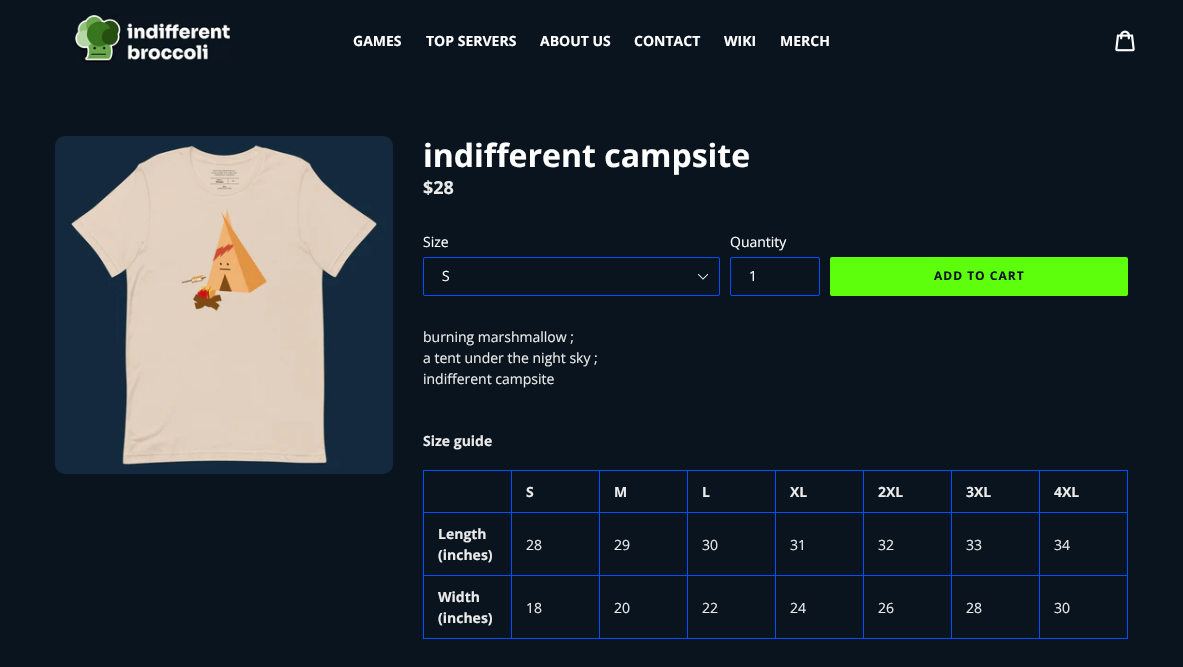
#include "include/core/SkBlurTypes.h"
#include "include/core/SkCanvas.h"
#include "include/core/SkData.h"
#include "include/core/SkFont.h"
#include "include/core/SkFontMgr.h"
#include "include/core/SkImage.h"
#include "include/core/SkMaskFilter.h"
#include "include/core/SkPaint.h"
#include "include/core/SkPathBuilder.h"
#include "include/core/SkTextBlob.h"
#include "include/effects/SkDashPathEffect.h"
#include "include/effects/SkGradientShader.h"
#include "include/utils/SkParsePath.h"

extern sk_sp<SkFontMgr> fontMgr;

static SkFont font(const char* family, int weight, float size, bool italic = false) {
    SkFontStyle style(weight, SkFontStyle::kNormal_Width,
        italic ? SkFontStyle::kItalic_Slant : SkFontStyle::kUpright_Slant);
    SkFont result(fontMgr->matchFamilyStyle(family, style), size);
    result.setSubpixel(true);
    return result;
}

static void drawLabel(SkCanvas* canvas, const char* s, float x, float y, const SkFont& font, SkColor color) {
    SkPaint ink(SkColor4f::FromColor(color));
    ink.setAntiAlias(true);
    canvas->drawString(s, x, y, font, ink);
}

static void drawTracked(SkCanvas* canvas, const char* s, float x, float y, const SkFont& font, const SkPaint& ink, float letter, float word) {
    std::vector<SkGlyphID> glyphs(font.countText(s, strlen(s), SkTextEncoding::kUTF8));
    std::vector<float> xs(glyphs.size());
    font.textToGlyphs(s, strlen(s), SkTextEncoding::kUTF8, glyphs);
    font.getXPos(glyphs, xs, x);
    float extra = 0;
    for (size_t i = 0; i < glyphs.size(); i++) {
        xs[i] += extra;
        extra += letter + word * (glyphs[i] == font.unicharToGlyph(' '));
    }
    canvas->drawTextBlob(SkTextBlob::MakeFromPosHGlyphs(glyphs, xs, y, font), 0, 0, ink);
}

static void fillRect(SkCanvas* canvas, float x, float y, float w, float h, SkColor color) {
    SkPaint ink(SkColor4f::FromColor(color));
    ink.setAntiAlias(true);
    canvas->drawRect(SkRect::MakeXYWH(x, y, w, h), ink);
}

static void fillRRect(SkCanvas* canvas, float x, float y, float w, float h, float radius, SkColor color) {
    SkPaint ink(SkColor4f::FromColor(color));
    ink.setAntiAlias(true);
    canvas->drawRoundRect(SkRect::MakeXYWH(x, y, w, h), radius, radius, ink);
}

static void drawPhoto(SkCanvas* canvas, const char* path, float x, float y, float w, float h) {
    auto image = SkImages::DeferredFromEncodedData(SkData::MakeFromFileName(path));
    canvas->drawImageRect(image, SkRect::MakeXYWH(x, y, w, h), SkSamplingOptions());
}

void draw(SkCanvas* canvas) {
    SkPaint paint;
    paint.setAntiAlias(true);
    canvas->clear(0xFF0A141E);
    drawPhoto(canvas, "assets/img1.png", 75, 15, 155, 47);
    SkFont font1 = font("Open Sans", 700, 14);
    drawLabel(canvas, "GAMES", 353, 46, font1, 0xFFFFFFFF);
    drawLabel(canvas, "TOP SERVERS", 426, 46, font1, 0xFFFFFFFF);
    drawLabel(canvas, "ABOUT US", 540, 46, font1, 0xFFFFFFFF);
    drawLabel(canvas, "CONTACT", 634, 46, font1, 0xFFFFFFFF);
    drawLabel(canvas, "WIKI", 724, 46, font1, 0xFFFFFFFF);
    drawLabel(canvas, "MERCH", 780, 46, font1, 0xFFFFFFFF);
    drawPhoto(canvas, "assets/img2.png", 1115, 30, 20, 22);
    drawPhoto(canvas, "assets/img3.png", 55, 136, 338, 338);
    SkFont font2 = font("Open Sans", 700, 32);
    drawLabel(canvas, "indifferent campsite", 423, 167, font2, 0xFFFFFFFF);
    SkFont font3 = font("Open Sans", 700, 18);
    drawLabel(canvas, "$28", 423, 194, font3, 0xFFEAEAEA);
    SkFont font4 = font("Open Sans", 400, 14);
    drawLabel(canvas, "Size", 423, 247, font4, 0xFFFFFFFF);
    drawPhoto(canvas, "assets/img4.png", 697, 273, 12, 7);
    paint.setStroke(true);
    paint.setStrokeWidth(1);
    paint.setColor(0xFF0050FF);
    canvas->drawRoundRect(SkRect::MakeXYWH(423.5f, 257.5f, 296, 38), 1.5f, 1.5f, paint);
    drawLabel(canvas, "S", 442, 281, font4, 0xFFFFFFFF);
    drawLabel(canvas, "Quantity", 730, 247, font4, 0xFFFFFFFF);
    canvas->drawRoundRect(SkRect::MakeXYWH(730.5f, 257.5f, 89, 38), 1.5f, 1.5f, paint);
    drawLabel(canvas, "1", 749, 281, font4, 0xFFFFFFFF);
    fillRRect(canvas, 830, 257, 298, 39, 2, 0xFF5DFF0D);
    SkFont font5 = font("Open Sans", 700, 12);
    paint.setStroke(false);
    paint.setColor(0xFF0A141E);
    drawTracked(canvas, "ADD TO CART", 934, 280, font5, paint, 1, 0);
    drawLabel(canvas, "burning marshmallow ;", 423, 342, font4, 0xFFEAEAEA);
    drawLabel(canvas, "a tent under the night sky ;", 423, 363, font4, 0xFFEAEAEA);
    drawLabel(canvas, "indifferent campsite", 423, 384, font4, 0xFFEAEAEA);
    drawLabel(canvas, "Size guide", 423, 446, font1, 0xFFEAEAEA);
    fillRect(canvas, 1039, 470, 89, 1, 0xFF0050FF);
    fillRect(canvas, 1039, 512, 89, 1, 0xFF0050FF);
    fillRect(canvas, 1039, 575, 89, 1, 0xFF0050FF);
    fillRect(canvas, 1127, 575, 1, 64, 0xFF0050FF);
    fillRect(canvas, 1039, 638, 89, 1, 0xFF0050FF);
    fillRect(canvas, 1039, 575, 1, 64, 0xFF0050FF);
    fillRect(canvas, 951, 575, 89, 1, 0xFF0050FF);
    fillRect(canvas, 1039, 512, 1, 64, 0xFF0050FF);
    fillRect(canvas, 951, 512, 89, 1, 0xFF0050FF);
    fillRect(canvas, 1039, 470, 1, 43, 0xFF0050FF);
    fillRect(canvas, 951, 470, 89, 1, 0xFF0050FF);
    fillRect(canvas, 951, 638, 89, 1, 0xFF0050FF);
    fillRect(canvas, 951, 575, 1, 64, 0xFF0050FF);
    fillRect(canvas, 863, 575, 89, 1, 0xFF0050FF);
    fillRect(canvas, 951, 512, 1, 64, 0xFF0050FF);
    fillRect(canvas, 863, 512, 89, 1, 0xFF0050FF);
    fillRect(canvas, 951, 470, 1, 43, 0xFF0050FF);
    fillRect(canvas, 863, 470, 89, 1, 0xFF0050FF);
    fillRect(canvas, 863, 638, 89, 1, 0xFF0050FF);
    fillRect(canvas, 863, 575, 1, 64, 0xFF0050FF);
    fillRect(canvas, 775, 575, 89, 1, 0xFF0050FF);
    fillRect(canvas, 863, 512, 1, 64, 0xFF0050FF);
    fillRect(canvas, 775, 512, 89, 1, 0xFF0050FF);
    fillRect(canvas, 863, 470, 1, 43, 0xFF0050FF);
    fillRect(canvas, 775, 470, 89, 1, 0xFF0050FF);
    fillRect(canvas, 775, 638, 89, 1, 0xFF0050FF);
    fillRect(canvas, 775, 575, 1, 64, 0xFF0050FF);
    fillRect(canvas, 687, 575, 89, 1, 0xFF0050FF);
    fillRect(canvas, 775, 512, 1, 64, 0xFF0050FF);
    fillRect(canvas, 687, 512, 89, 1, 0xFF0050FF);
    fillRect(canvas, 775, 470, 1, 43, 0xFF0050FF);
    fillRect(canvas, 687, 470, 89, 1, 0xFF0050FF);
    fillRect(canvas, 687, 638, 89, 1, 0xFF0050FF);
    fillRect(canvas, 687, 575, 1, 64, 0xFF0050FF);
    fillRect(canvas, 599, 575, 89, 1, 0xFF0050FF);
    fillRect(canvas, 687, 512, 1, 64, 0xFF0050FF);
    fillRect(canvas, 599, 512, 89, 1, 0xFF0050FF);
    fillRect(canvas, 687, 470, 1, 43, 0xFF0050FF);
    fillRect(canvas, 599, 470, 89, 1, 0xFF0050FF);
    fillRect(canvas, 599, 638, 89, 1, 0xFF0050FF);
    fillRect(canvas, 599, 575, 1, 64, 0xFF0050FF);
    fillRect(canvas, 511, 575, 89, 1, 0xFF0050FF);
    fillRect(canvas, 599, 512, 1, 64, 0xFF0050FF);
    fillRect(canvas, 511, 512, 89, 1, 0xFF0050FF);
    fillRect(canvas, 599, 470, 1, 43, 0xFF0050FF);
    fillRect(canvas, 511, 470, 89, 1, 0xFF0050FF);
    fillRect(canvas, 511, 638, 89, 1, 0xFF0050FF);
    fillRect(canvas, 511, 575, 1, 64, 0xFF0050FF);
    fillRect(canvas, 423, 575, 89, 1, 0xFF0050FF);
    fillRect(canvas, 511, 512, 1, 64, 0xFF0050FF);
    fillRect(canvas, 423, 512, 89, 1, 0xFF0050FF);
    fillRect(canvas, 511, 470, 1, 43, 0xFF0050FF);
    fillRect(canvas, 423, 470, 89, 1, 0xFF0050FF);
    fillRect(canvas, 423, 638, 89, 1, 0xFF0050FF);
    fillRect(canvas, 423, 575, 1, 64, 0xFF0050FF);
    fillRect(canvas, 423, 512, 1, 64, 0xFF0050FF);
    fillRect(canvas, 423, 470, 1, 43, 0xFF0050FF);
    drawLabel(canvas, "S", 526, 497, font1, 0xFFEAEAEA);
    drawLabel(canvas, "M", 614, 497, font1, 0xFFEAEAEA);
    drawLabel(canvas, "L", 702, 497, font1, 0xFFEAEAEA);
    drawLabel(canvas, "XL", 790, 497, font1, 0xFFEAEAEA);
    drawLabel(canvas, "2XL", 878, 497, font1, 0xFFEAEAEA);
    drawLabel(canvas, "3XL", 966, 497, font1, 0xFFEAEAEA);
    fillRect(canvas, 1127, 512, 1, 64, 0xFF0050FF);
    fillRect(canvas, 1127, 470, 1, 43, 0xFF0050FF);
    drawLabel(canvas, "4XL", 1054, 497, font1, 0xFFEAEAEA);
    drawLabel(canvas, "Length", 438, 539, font1, 0xFFEAEAEA);
    drawLabel(canvas, "(inches)", 438, 560, font1, 0xFFEAEAEA);
    drawLabel(canvas, "28", 526, 550, font4, 0xFFEAEAEA);
    drawLabel(canvas, "29", 614, 550, font4, 0xFFEAEAEA);
    drawLabel(canvas, "30", 702, 550, font4, 0xFFEAEAEA);
    drawLabel(canvas, "31", 790, 550, font4, 0xFFEAEAEA);
    drawLabel(canvas, "32", 878, 550, font4, 0xFFEAEAEA);
    drawLabel(canvas, "33", 966, 550, font4, 0xFFEAEAEA);
    drawLabel(canvas, "34", 1054, 550, font4, 0xFFEAEAEA);
    drawLabel(canvas, "Width", 438, 602, font1, 0xFFEAEAEA);
    drawLabel(canvas, "(inches)", 438, 623, font1, 0xFFEAEAEA);
    drawLabel(canvas, "18", 526, 613, font4, 0xFFEAEAEA);
    drawLabel(canvas, "20", 614, 613, font4, 0xFFEAEAEA);
    drawLabel(canvas, "22", 702, 613, font4, 0xFFEAEAEA);
    drawLabel(canvas, "24", 790, 613, font4, 0xFFEAEAEA);
    drawLabel(canvas, "26", 878, 613, font4, 0xFFEAEAEA);
    drawLabel(canvas, "28", 966, 613, font4, 0xFFEAEAEA);
    drawLabel(canvas, "30", 1054, 613, font4, 0xFFEAEAEA);
}
